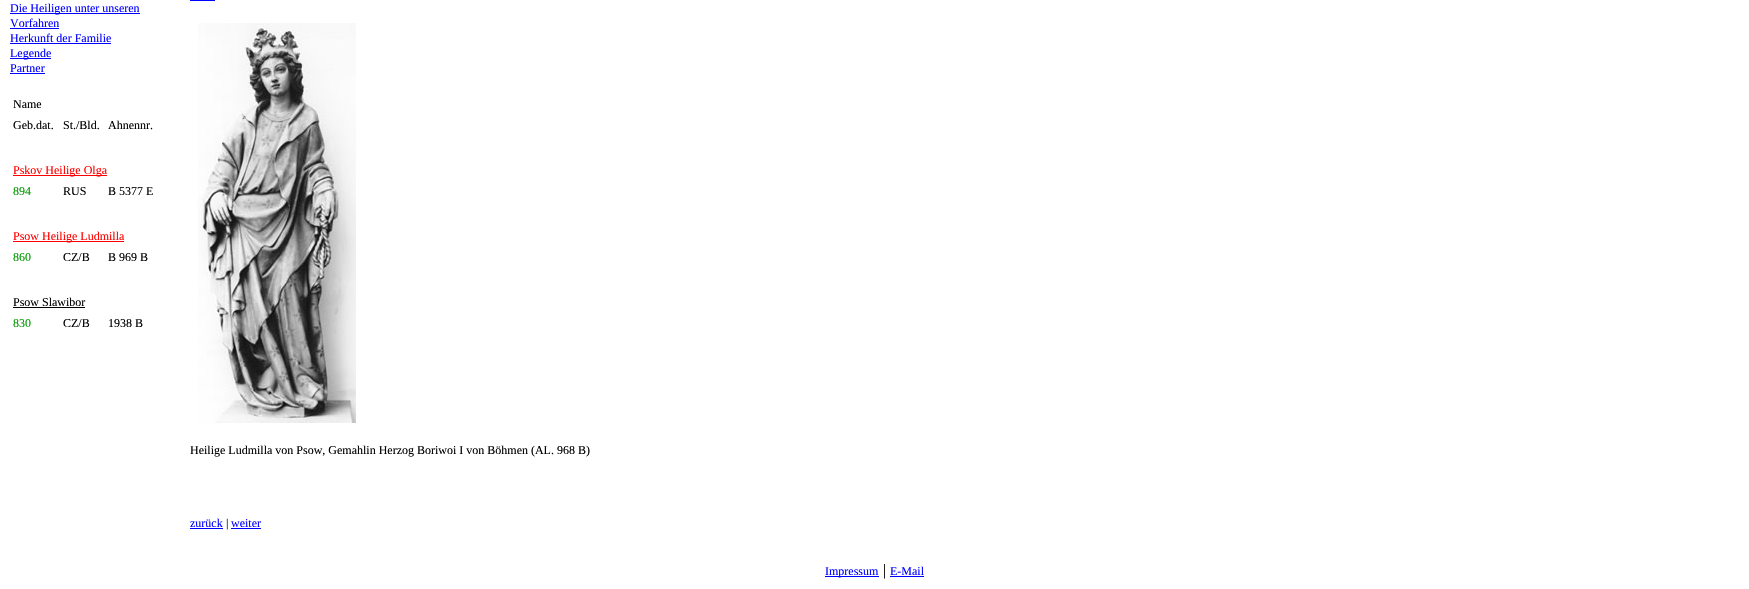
#include "include/core/SkBlurTypes.h"
#include "include/core/SkCanvas.h"
#include "include/core/SkData.h"
#include "include/core/SkFont.h"
#include "include/core/SkFontMgr.h"
#include "include/core/SkImage.h"
#include "include/core/SkMaskFilter.h"
#include "include/core/SkPaint.h"
#include "include/core/SkPathBuilder.h"
#include "include/core/SkTextBlob.h"
#include "include/effects/SkDashPathEffect.h"
#include "include/effects/SkGradientShader.h"
#include "include/utils/SkParsePath.h"

extern sk_sp<SkFontMgr> fontMgr;

static SkFont font(const char* family, int weight, float size, bool italic = false) {
    SkFontStyle style(weight, SkFontStyle::kNormal_Width,
        italic ? SkFontStyle::kItalic_Slant : SkFontStyle::kUpright_Slant);
    SkFont result(fontMgr->matchFamilyStyle(family, style), size);
    result.setSubpixel(true);
    return result;
}

static void drawLabel(SkCanvas* canvas, const char* s, float x, float y, const SkFont& font, SkColor color) {
    SkPaint ink(SkColor4f::FromColor(color));
    ink.setAntiAlias(true);
    canvas->drawString(s, x, y, font, ink);
}

static void fillRect(SkCanvas* canvas, float x, float y, float w, float h, SkColor color) {
    SkPaint ink(SkColor4f::FromColor(color));
    ink.setAntiAlias(true);
    canvas->drawRect(SkRect::MakeXYWH(x, y, w, h), ink);
}

static void drawPhoto(SkCanvas* canvas, const char* path, float x, float y, float w, float h) {
    auto image = SkImages::DeferredFromEncodedData(SkData::MakeFromFileName(path));
    canvas->drawImageRect(image, SkRect::MakeXYWH(x, y, w, h), SkSamplingOptions());
}

void draw(SkCanvas* canvas) {
    SkPaint paint;
    paint.setAntiAlias(true);
    canvas->clear(0xFFFFFFFF);
    fillRect(canvas, 10, 13, 130, 1, 0xFF0000FF);
    SkFont font1 = font("Liberation Serif", 400, 12);
    drawLabel(canvas, "Die Heiligen unter unseren", 10, 12, font1, 0xFF0000FF);
    drawLabel(canvas, "Vorfahren", 10, 27, font1, 0xFF0000FF);
    fillRect(canvas, 10, 28, 49, 1, 0xFF0000FF);
    drawLabel(canvas, "Herkunft der Familie", 10, 42, font1, 0xFF0000FF);
    fillRect(canvas, 10, 43, 101, 1, 0xFF0000FF);
    fillRect(canvas, 10, 58, 41, 1, 0xFF0000FF);
    drawLabel(canvas, "Legende", 10, 57, font1, 0xFF0000FF);
    drawLabel(canvas, "Partner", 10, 72, font1, 0xFF0000FF);
    fillRect(canvas, 10, 73, 35, 1, 0xFF0000FF);
    drawLabel(canvas, "Name", 13, 108, font1, 0xFF000000);
    drawLabel(canvas, "Geb.dat.", 13, 129, font1, 0xFF000000);
    drawLabel(canvas, "St./Bld.", 63, 129, font1, 0xFF000000);
    drawLabel(canvas, "Ahnennr.", 108, 129, font1, 0xFF000000);
    fillRect(canvas, 13, 175, 94, 1, 0xFFFF0000);
    drawLabel(canvas, "Pskov Heilige Olga", 13, 174, font1, 0xFFFF0000);
    drawLabel(canvas, "894", 13, 195, font1, 0xFF009900);
    drawLabel(canvas, "RUS", 63, 195, font1, 0xFF000000);
    drawLabel(canvas, "B 5377 E", 108, 195, font1, 0xFF000000);
    fillRect(canvas, 13, 241, 111, 1, 0xFFFF0000);
    drawLabel(canvas, "Psow Heilige Ludmilla", 13, 240, font1, 0xFFFF0000);
    drawLabel(canvas, "860", 13, 261, font1, 0xFF009900);
    drawLabel(canvas, "CZ/B", 63, 261, font1, 0xFF000000);
    drawLabel(canvas, "B 969 B", 108, 261, font1, 0xFF000000);
    drawLabel(canvas, "Psow Slawibor", 13, 306, font1, 0xFF000000);
    fillRect(canvas, 13, 307, 72, 1, 0xFF000000);
    drawLabel(canvas, "830", 13, 327, font1, 0xFF009900);
    drawLabel(canvas, "CZ/B", 63, 327, font1, 0xFF000000);
    drawLabel(canvas, "1938 B", 108, 327, font1, 0xFF000000);
    fillRect(canvas, 190, 0, 25, 1, 0xFF0000FF);
    drawPhoto(canvas, "assets/img1.png", 198, 23, 158, 400);
    drawLabel(canvas, "Heilige Ludmilla von Psow, Gemahlin Herzog Boriwoi I von Böhmen (AL. 968 B)", 190, 454, font1, 0xFF000000);
    drawLabel(canvas, "zurück", 190, 527, font1, 0xFF0000FF);
    fillRect(canvas, 190, 528, 33, 1, 0xFF0000FF);
    drawLabel(canvas, "|", 226, 527, font1, 0xFF000000);
    drawLabel(canvas, "weiter", 231, 527, font1, 0xFF0000FF);
    fillRect(canvas, 231, 528, 30, 1, 0xFF0000FF);
    fillRect(canvas, 825, 576, 54, 1, 0xFF0000FF);
    drawLabel(canvas, "Impressum", 825, 575, font1, 0xFF0000FF);
    SkFont font2 = font("Liberation Serif", 400, 16);
    drawLabel(canvas, "|", 883, 575, font2, 0xFF000000);
    drawLabel(canvas, "E-Mail", 890, 575, font1, 0xFF0000FF);
    fillRect(canvas, 890, 576, 34, 1, 0xFF0000FF);
}
